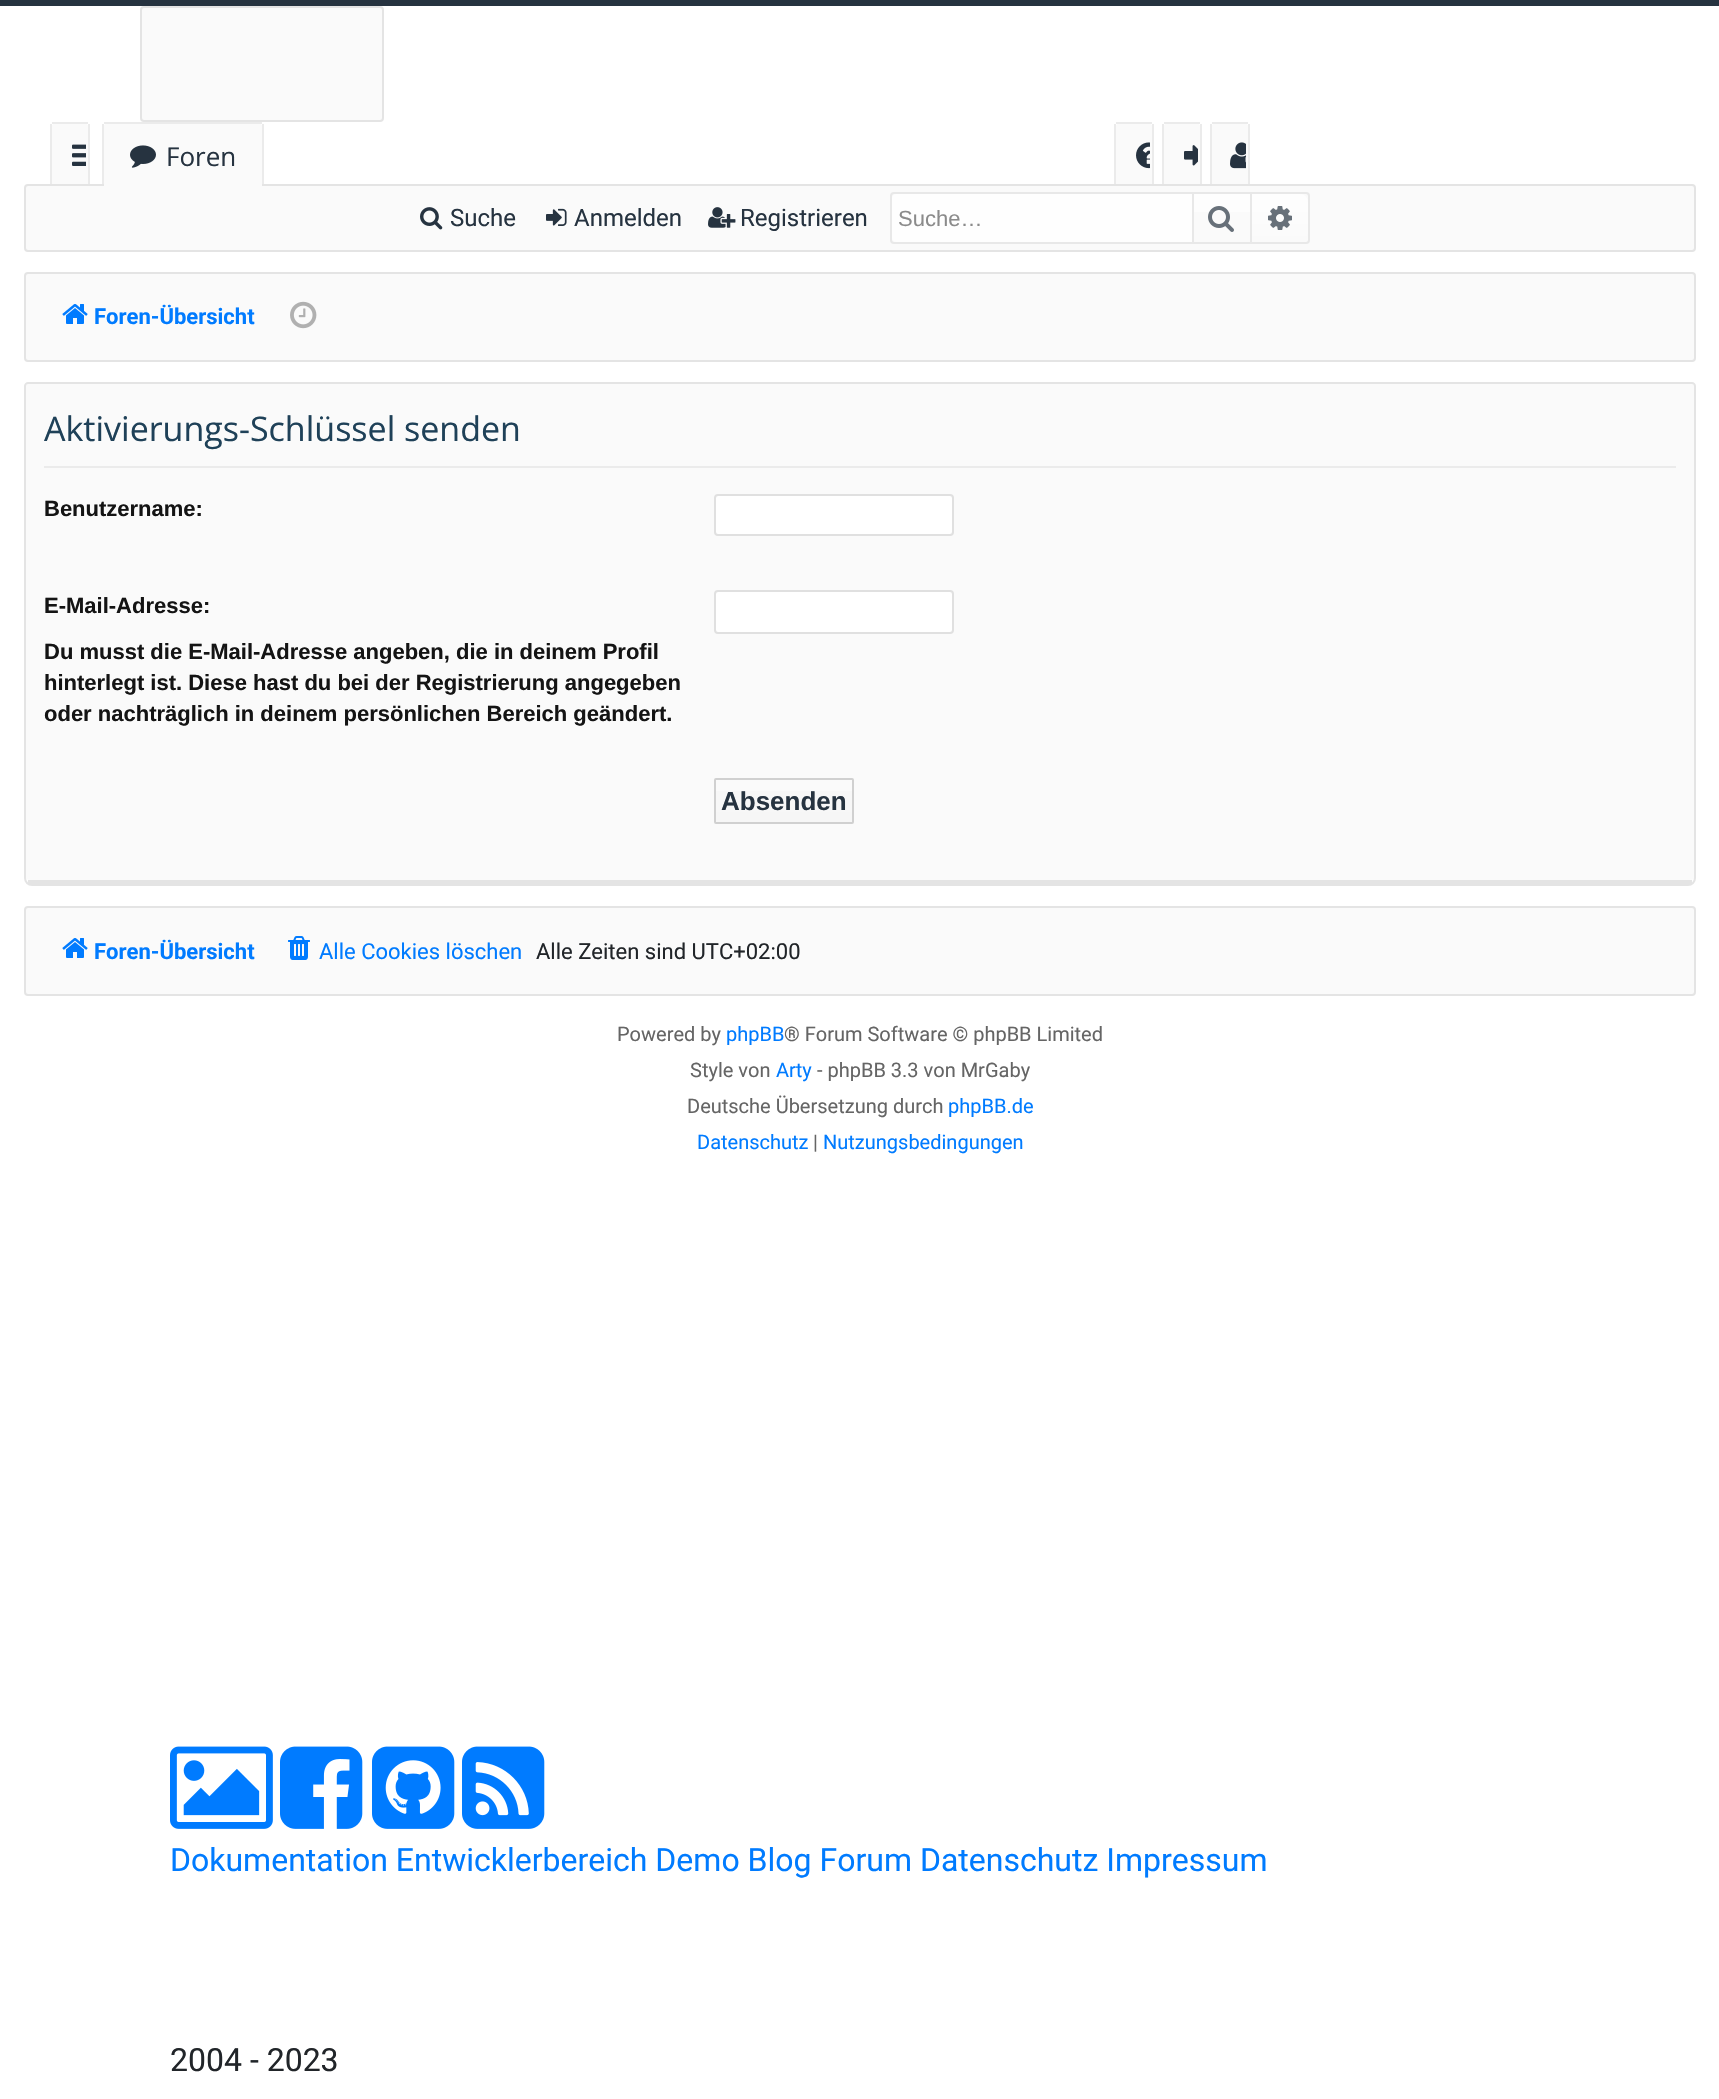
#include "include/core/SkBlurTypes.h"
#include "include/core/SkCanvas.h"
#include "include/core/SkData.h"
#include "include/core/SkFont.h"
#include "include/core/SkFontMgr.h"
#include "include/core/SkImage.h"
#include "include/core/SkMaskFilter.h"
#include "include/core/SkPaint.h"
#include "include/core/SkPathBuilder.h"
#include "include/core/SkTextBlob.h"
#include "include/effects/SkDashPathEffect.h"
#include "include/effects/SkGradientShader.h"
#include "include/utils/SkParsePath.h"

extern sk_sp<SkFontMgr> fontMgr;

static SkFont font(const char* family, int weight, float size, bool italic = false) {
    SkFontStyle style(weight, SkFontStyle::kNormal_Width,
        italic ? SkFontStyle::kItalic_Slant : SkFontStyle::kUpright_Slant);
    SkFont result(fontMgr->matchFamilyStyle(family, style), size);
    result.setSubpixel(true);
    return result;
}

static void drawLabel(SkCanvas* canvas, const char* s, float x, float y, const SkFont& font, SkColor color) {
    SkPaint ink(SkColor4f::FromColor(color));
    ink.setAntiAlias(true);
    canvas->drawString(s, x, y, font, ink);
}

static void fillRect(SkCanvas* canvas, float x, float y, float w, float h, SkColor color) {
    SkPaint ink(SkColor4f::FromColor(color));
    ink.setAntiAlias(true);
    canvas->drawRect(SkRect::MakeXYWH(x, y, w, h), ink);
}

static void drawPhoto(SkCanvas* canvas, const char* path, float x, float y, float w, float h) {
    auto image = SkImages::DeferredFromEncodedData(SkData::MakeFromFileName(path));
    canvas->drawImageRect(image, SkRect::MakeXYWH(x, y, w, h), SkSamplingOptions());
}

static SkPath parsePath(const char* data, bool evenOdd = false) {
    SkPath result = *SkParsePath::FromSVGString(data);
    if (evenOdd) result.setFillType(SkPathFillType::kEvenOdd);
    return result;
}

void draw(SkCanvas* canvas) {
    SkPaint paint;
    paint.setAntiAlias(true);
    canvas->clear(0xFFFFFFFF);
    fillRect(canvas, 0, 0, 1719, 6, 0xFF263340);
    paint.setColor(0xFFFAFAFA);
    canvas->drawRoundRect(SkRect::MakeXYWH(141, 7, 242, 114), 3, 3, paint);
    paint.setStroke(true);
    paint.setStrokeWidth(2);
    paint.setColor(0xFFE4E4E4);
    canvas->drawRoundRect(SkRect::MakeXYWH(141, 7, 242, 114), 3, 3, paint);
    paint.setStroke(false);
    paint.setColor(0xFFFAFAFA);
    canvas->drawPath(parsePath("M54 124H86C87 124 88 125 88 126V184H52V126C52 125 53 124 54 124Z"), paint);
    fillRect(canvas, 52, 122, 36, 2, 0xFFEBEBEB);
    fillRect(canvas, 88, 124, 2, 60, 0xFFEBEBEB);
    fillRect(canvas, 50, 124, 2, 60, 0xFFEBEBEB);
    drawPhoto(canvas, "assets/img1.png", 72, 144, 14, 22);
    canvas->drawPath(parsePath("M106 124H260C261 124 262 125 262 126V184H104V126C104 125 105 124 106 124Z"), paint);
    fillRect(canvas, 104, 122, 158, 2, 0xFFEBEBEB);
    fillRect(canvas, 262, 124, 2, 60, 0xFFEBEBEB);
    fillRect(canvas, 102, 124, 2, 60, 0xFFEBEBEB);
    drawPhoto(canvas, "assets/img2.png", 130, 145, 26, 23);
    SkFont font1 = font("Open Sans", 400, 26);
    drawLabel(canvas, "Foren", 166, 166, font1, 0xFF263340);
    canvas->drawRoundRect(SkRect::MakeXYWH(25, 185, 1670, 66), 3, 3, paint);
    paint.setStroke(true);
    paint.setColor(0xFFE4E4E4);
    canvas->drawRoundRect(SkRect::MakeXYWH(25, 185, 1670, 66), 3, 3, paint);
    paint.setStroke(false);
    paint.setColor(0xFFFAFAFA);
    canvas->drawPath(parsePath("M108 180H258C260 180 262 182 262 184V188H104V184C104 182 106 180 108 180Z"), paint);
    canvas->drawPath(parsePath("M1118 124H1150C1151 124 1152 125 1152 126V184H1116V126C1116 125 1117 124 1118 124Z"), paint);
    fillRect(canvas, 1116, 122, 36, 2, 0xFFEBEBEB);
    fillRect(canvas, 1152, 124, 2, 60, 0xFFEBEBEB);
    fillRect(canvas, 1114, 124, 2, 60, 0xFFEBEBEB);
    drawPhoto(canvas, "assets/img3.png", 1136, 142, 14, 27);
    canvas->drawPath(parsePath("M1166 124H1198C1199 124 1200 125 1200 126V184H1164V126C1164 125 1165 124 1166 124Z"), paint);
    fillRect(canvas, 1164, 122, 36, 2, 0xFFEBEBEB);
    fillRect(canvas, 1200, 124, 2, 60, 0xFFEBEBEB);
    fillRect(canvas, 1162, 124, 2, 60, 0xFFEBEBEB);
    drawPhoto(canvas, "assets/img4.png", 1184, 145, 14, 21);
    canvas->drawPath(parsePath("M1214 124H1246C1247 124 1248 125 1248 126V184H1212V126C1212 125 1213 124 1214 124Z"), paint);
    fillRect(canvas, 1212, 122, 36, 2, 0xFFEBEBEB);
    fillRect(canvas, 1248, 124, 2, 60, 0xFFEBEBEB);
    fillRect(canvas, 1210, 124, 2, 60, 0xFFEBEBEB);
    drawPhoto(canvas, "assets/img5.png", 1230, 142, 16, 27);
    drawPhoto(canvas, "assets/img6.png", 420, 207, 23, 23);
    SkFont font2 = font("Roboto", 400, 24);
    drawLabel(canvas, "Suche", 450, 226, font2, 0xFF263340);
    drawPhoto(canvas, "assets/img7.png", 546, 208, 21, 18);
    drawLabel(canvas, "Anmelden", 574, 226, font2, 0xFF263340);
    drawPhoto(canvas, "assets/img8.png", 708, 207, 28, 21);
    drawLabel(canvas, "Registrieren", 740, 226, font2, 0xFF263340);
    paint.setStroke(true);
    paint.setColor(0xFFE8E8E8);
    canvas->drawRoundRect(SkRect::MakeXYWH(891, 193, 418, 50), 3, 3, paint);
    paint.setStroke(false);
    paint.setColor(0xFFFEFEFE);
    canvas->drawPath(parsePath("M896 194H1192V242H896C894 242 892 240 892 238V198C892 196 894 194 896 194Z"), paint);
    SkFont font3 = font("Liberation Sans", 400, 22);
    drawLabel(canvas, "Suche…", 898, 226, font3, 0xFF8B8B8B);
    {
        const SkColor colors[] = {0xFFFEFEFE, 0xFFFAFAFA};
        const float stops[] = {0, 1};
        const SkPoint ends[] = {{1222, 194}, {1222, 242}};
        paint.setShader(SkGradientShader::MakeLinear(ends, colors, stops, 2, SkTileMode::kClamp));
        paint.setAlpha(255);
    }
    canvas->drawRect(SkRect::MakeXYWH(1194, 194, 56, 18), paint);
    fillRect(canvas, 1250, 194, 2, 48, 0xFFE8E8E8);
    fillRect(canvas, 1192, 194, 2, 48, 0xFFE8E8E8);
    drawPhoto(canvas, "assets/img9.png", 1208, 206, 26, 26);
    {
        const SkColor colors[] = {0xFFFEFEFE, 0xFFFAFAFA};
        const float stops[] = {0, 1};
        const SkPoint ends[] = {{1280, 194}, {1280, 242}};
        paint.setShader(SkGradientShader::MakeLinear(ends, colors, stops, 2, SkTileMode::kClamp));
        paint.setAlpha(255);
    }
    canvas->drawPath(parsePath("M1252 194H1300C1304.5 194 1308 197.5 1308 202V234C1308 238.5 1304.5 242 1300 242H1252Z"), paint);
    drawPhoto(canvas, "assets/img10.png", 1268, 206, 24, 24);
    paint.setShader(nullptr);
    paint.setColor(0xFFFAFAFA);
    canvas->drawRoundRect(SkRect::MakeXYWH(25, 273, 1670, 88), 3, 3, paint);
    paint.setStroke(true);
    paint.setColor(0xFFE4E4E4);
    canvas->drawRoundRect(SkRect::MakeXYWH(25, 273, 1670, 88), 3, 3, paint);
    drawPhoto(canvas, "assets/img11.png", 62, 304, 26, 20);
    SkFont font4 = font("Roboto", 700, 22);
    drawLabel(canvas, "Foren-Übersicht", 94, 324, font4, 0xFF007BFF);
    drawPhoto(canvas, "assets/img12.png", 290, 301, 27, 28);
    paint.setStroke(false);
    paint.setColor(0xFFFAFAFA);
    canvas->drawPath(parsePath("M28 384H1692C1693 384 1694 385 1694 386V878C1694 879 1691 880 1688 880H32C29 880 26 879 26 878V386C26 385 27 384 28 384Z"), paint);
    paint.setStroke(true);
    paint.setColor(0xFFE4E4E4);
    canvas->drawPath(parsePath("M28 383H1692C1693.5 383 1695 384.5 1695 386V878C1695 882 1692 885 1688 885H32C28 885 25 882 25 878V386C25 384.5 26.5 383 28 383Z"), paint);
    fillRect(canvas, 28, 880, 1664, 4, 0xFFE4E4E4);
    fillRect(canvas, 44, 466, 1632, 2, 0xFFEBEBEB);
    SkFont font5 = font("Open Sans", 400, 34);
    drawLabel(canvas, "Aktivierungs-Schlüssel senden", 44, 441, font5, 0xFF1F4158);
    SkFont font6 = font("Liberation Sans", 700, 22);
    drawLabel(canvas, "Benutzername:", 44, 516, font6, 0xFF141414);
    paint.setStroke(false);
    paint.setColor(0xFFFFFFFF);
    canvas->drawRoundRect(SkRect::MakeXYWH(715, 495, 238, 40), 3, 3, paint);
    paint.setStroke(true);
    paint.setColor(0xFFE0E0E0);
    canvas->drawRoundRect(SkRect::MakeXYWH(715, 495, 238, 40), 3, 3, paint);
    drawLabel(canvas, "E-Mail-Adresse:", 44, 613, font6, 0xFF141414);
    drawLabel(canvas, "Du musst die E-Mail-Adresse angeben, die in deinem Profil", 44, 659, font6, 0xFF141414);
    drawLabel(canvas, "hinterlegt ist. Diese hast du bei der Registrierung angegeben", 44, 690, font6, 0xFF141414);
    drawLabel(canvas, "oder nachträglich in deinem persönlichen Bereich geändert.", 44, 721, font6, 0xFF141414);
    paint.setStroke(false);
    paint.setColor(0xFFFFFFFF);
    canvas->drawRoundRect(SkRect::MakeXYWH(715, 591, 238, 42), 3, 3, paint);
    paint.setStroke(true);
    paint.setColor(0xFFE0E0E0);
    canvas->drawRoundRect(SkRect::MakeXYWH(715, 591, 238, 42), 3, 3, paint);
    paint.setStroke(false);
    {
        const SkColor colors[] = {0xFFF8F8F8, 0xFFF6F6F6};
        const float stops[] = {0, 1};
        const SkPoint ends[] = {{784, 780}, {784, 822}};
        paint.setShader(SkGradientShader::MakeLinear(ends, colors, stops, 2, SkTileMode::kClamp));
        paint.setAlpha(255);
    }
    canvas->drawRect(SkRect::MakeXYWH(716, 791, 136, 31), paint);
    paint.setStroke(true);
    paint.setShader(nullptr);
    paint.setColor(0xFFD0D0D0);
    canvas->drawRoundRect(SkRect::MakeXYWH(715, 779, 138, 44), 1, 1, paint);
    SkFont font7 = font("Liberation Sans", 700, 26);
    drawLabel(canvas, "Absenden", 721, 810, font7, 0xFF263340);
    paint.setStroke(false);
    paint.setColor(0xFFFAFAFA);
    canvas->drawRoundRect(SkRect::MakeXYWH(25, 907, 1670, 88), 3, 3, paint);
    paint.setStroke(true);
    paint.setColor(0xFFE4E4E4);
    canvas->drawRoundRect(SkRect::MakeXYWH(25, 907, 1670, 88), 3, 3, paint);
    drawPhoto(canvas, "assets/img11.png", 62, 938, 26, 20);
    drawLabel(canvas, "Foren-Übersicht", 94, 959, font4, 0xFF007BFF);
    drawPhoto(canvas, "assets/img13.png", 288, 936, 22, 24);
    SkFont font8 = font("Roboto", 400, 22);
    drawLabel(canvas, "Alle Cookies löschen", 319, 959, font8, 0xFF007BFF);
    drawLabel(canvas, "Alle Zeiten sind UTC+02:00", 536, 959, font8, 0xFF212529);
    SkFont font9 = font("Roboto", 400, 20);
    drawLabel(canvas, "Powered by", 617, 1041, font9, 0xFF656565);
    drawLabel(canvas, "phpBB", 726, 1041, font9, 0xFF007BFF);
    drawLabel(canvas, "® Forum Software © phpBB Limited", 784, 1041, font9, 0xFF656565);
    drawLabel(canvas, "Style von", 690, 1077, font9, 0xFF656565);
    drawLabel(canvas, "Arty", 776, 1077, font9, 0xFF007BFF);
    drawLabel(canvas, "- phpBB 3.3 von MrGaby", 817, 1077, font9, 0xFF656565);
    drawLabel(canvas, "Deutsche Übersetzung durch", 687, 1113, font9, 0xFF656565);
    drawLabel(canvas, "phpBB.de", 948, 1113, font9, 0xFF007BFF);
    drawLabel(canvas, "Datenschutz", 697, 1149, font9, 0xFF007BFF);
    drawLabel(canvas, "|", 813, 1149, font9, 0xFF656565);
    drawLabel(canvas, "Nutzungsbedingungen", 823, 1149, font9, 0xFF007BFF);
    drawPhoto(canvas, "assets/img14.png", 170, 1746, 103, 83);
    drawPhoto(canvas, "assets/img15.png", 280, 1746, 83, 83);
    drawPhoto(canvas, "assets/img16.png", 372, 1746, 83, 83);
    drawPhoto(canvas, "assets/img17.png", 462, 1746, 83, 83);
    SkFont font10 = font("Roboto", 400, 32);
    drawLabel(canvas, "Dokumentation Entwicklerbereich Demo Blog Forum Datenschutz Impressum", 170, 1871, font10, 0xFF007BFF);
    drawLabel(canvas, "2004 - 2023", 170, 2071, font10, 0xFF212529);
}
